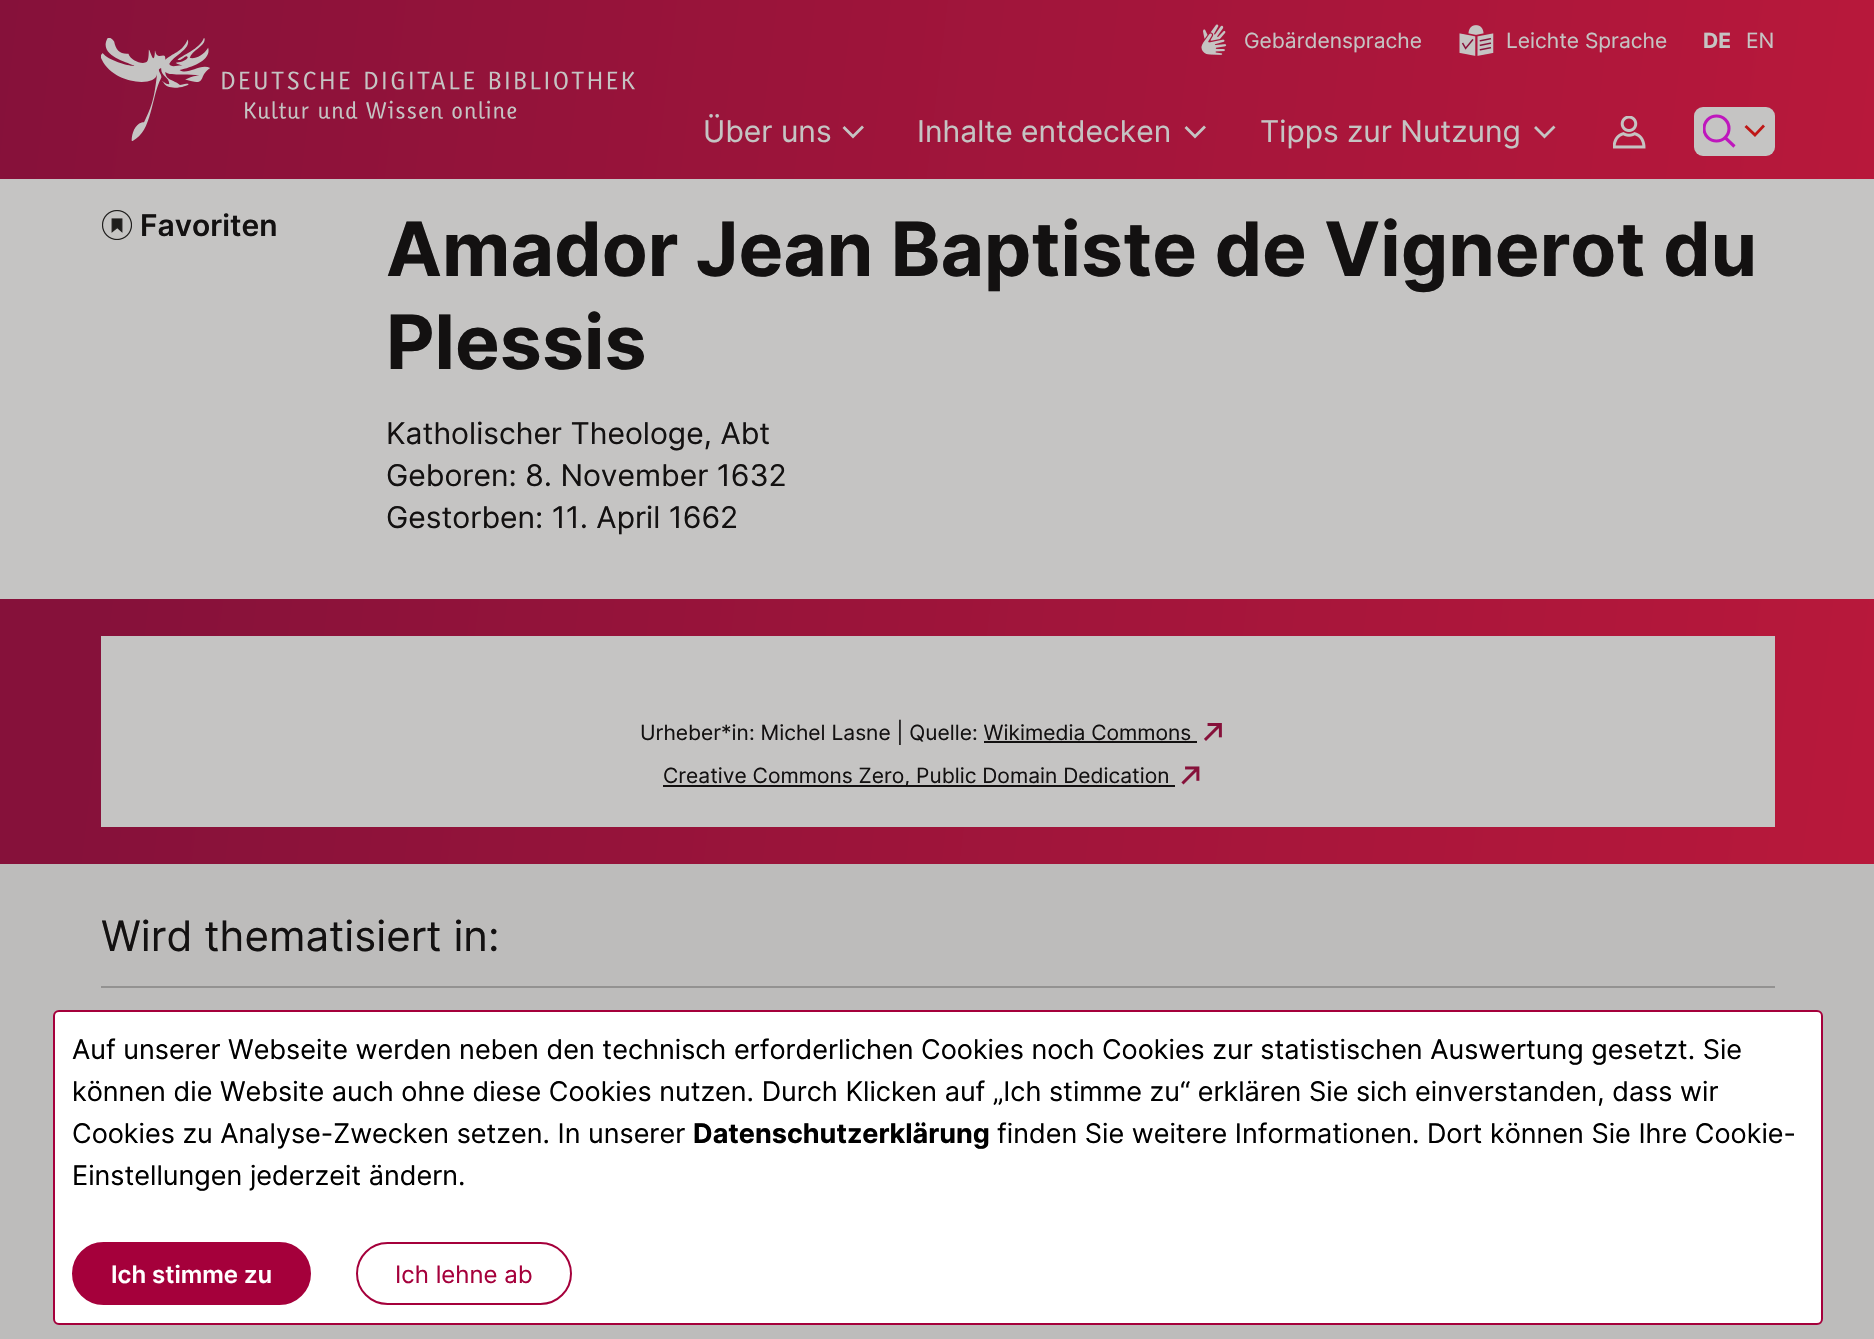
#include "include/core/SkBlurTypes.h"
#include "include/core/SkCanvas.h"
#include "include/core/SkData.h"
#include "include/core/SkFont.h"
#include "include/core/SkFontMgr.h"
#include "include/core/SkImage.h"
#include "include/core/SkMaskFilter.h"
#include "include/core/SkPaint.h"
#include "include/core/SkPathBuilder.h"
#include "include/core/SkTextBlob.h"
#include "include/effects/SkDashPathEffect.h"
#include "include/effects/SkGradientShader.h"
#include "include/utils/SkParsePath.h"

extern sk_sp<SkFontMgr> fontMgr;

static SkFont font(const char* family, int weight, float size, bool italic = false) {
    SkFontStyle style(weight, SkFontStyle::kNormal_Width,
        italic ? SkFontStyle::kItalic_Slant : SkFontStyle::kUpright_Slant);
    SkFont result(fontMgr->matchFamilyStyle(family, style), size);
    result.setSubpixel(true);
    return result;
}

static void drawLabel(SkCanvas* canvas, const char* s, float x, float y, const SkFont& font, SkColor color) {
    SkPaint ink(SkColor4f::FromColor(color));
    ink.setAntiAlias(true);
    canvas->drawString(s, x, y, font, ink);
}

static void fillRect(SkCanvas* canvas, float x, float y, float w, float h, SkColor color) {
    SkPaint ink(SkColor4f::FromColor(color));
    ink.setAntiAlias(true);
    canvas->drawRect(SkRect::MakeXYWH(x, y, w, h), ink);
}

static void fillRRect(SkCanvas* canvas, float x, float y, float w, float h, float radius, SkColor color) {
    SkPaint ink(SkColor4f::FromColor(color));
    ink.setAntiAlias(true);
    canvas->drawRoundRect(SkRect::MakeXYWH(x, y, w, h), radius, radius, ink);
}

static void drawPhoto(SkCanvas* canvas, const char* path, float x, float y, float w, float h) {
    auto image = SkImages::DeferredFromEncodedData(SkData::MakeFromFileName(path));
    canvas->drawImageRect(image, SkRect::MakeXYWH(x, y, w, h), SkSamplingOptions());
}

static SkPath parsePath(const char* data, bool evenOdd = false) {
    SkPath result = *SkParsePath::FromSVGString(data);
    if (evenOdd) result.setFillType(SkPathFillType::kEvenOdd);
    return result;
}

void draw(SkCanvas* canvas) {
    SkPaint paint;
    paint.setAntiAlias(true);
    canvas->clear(0xFFC5C4C3);
    {
        const SkColor colors[] = {0xFFB8183B, 0xFF86113A};
        const float stops[] = {0, 1};
        const SkPoint ends[] = {{1872, 201}, {2.7f, -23}};
        paint.setShader(SkGradientShader::MakeLinear(ends, colors, stops, 2, SkTileMode::kClamp));
        paint.setAlpha(255);
    }
    canvas->drawRect(SkRect::MakeXYWH(0, 0, 1874, 179), paint);
    drawPhoto(canvas, "assets/img1.png", 101, 38, 534, 103);
    drawPhoto(canvas, "assets/img2.png", 1201, 24, 26, 31);
    SkFont font1 = font("Inter", 400, 21);
    drawLabel(canvas, "Gebärdensprache", 1244, 48, font1, 0xFFC5C4C3);
    drawPhoto(canvas, "assets/img3.png", 1459, 25, 35, 31);
    drawLabel(canvas, "Leichte Sprache", 1506, 48, font1, 0xFFC5C4C3);
    SkFont font2 = font("Inter", 700, 21);
    drawLabel(canvas, "DE", 1703, 48, font2, 0xFFC5C4C3);
    drawLabel(canvas, "EN", 1746, 48, font1, 0xFFC5C4C3);
    SkFont font3 = font("Inter", 400, 30);
    drawLabel(canvas, "Über uns", 703, 142, font3, 0xFFC5C4C3);
    paint.setStroke(true);
    paint.setStrokeWidth(2.8f);
    paint.setStrokeCap(SkPaint::kSquare_Cap);
    paint.setShader(nullptr);
    paint.setColor(0xFFC5C4C3);
    canvas->drawPath(parsePath("M862 127.5L853 136.5L844.5 128"), paint);
    drawLabel(canvas, "Inhalte entdecken", 917, 142, font3, 0xFFC5C4C3);
    canvas->drawPath(parsePath("M1204 127.5L1195 136.5L1186.5 128"), paint);
    drawLabel(canvas, "Tipps zur Nutzung", 1260, 142, font3, 0xFFC5C4C3);
    canvas->drawPath(parsePath("M1553.5 127.5L1544.5 136.5L1536 128"), paint);
    drawPhoto(canvas, "assets/img4.png", 1613, 116, 33, 33);
    fillRRect(canvas, 1694, 107, 81, 49, 9, 0xFFC5C4C3);
    paint.setStrokeWidth(3.1f);
    paint.setStrokeCap(SkPaint::kButt_Cap);
    paint.setColor(0xFFBF17BD);
    canvas->drawPath(parsePath("M1725 137.5L1734.5 146.5"), paint);
    canvas->save();
    canvas->clipRect(SkRect::MakeXYWH(1703, 107, 33, 49));
    canvas->drawCircle(1716.5f, 128.5f, 12.5f, paint);
    canvas->restore();
    paint.setStroke(false);
    paint.setColor(0xFFBF1716);
    canvas->drawPath(parsePath("M1765 126.5L1755 137L1744.5 127L1746.5 125L1755 133L1763 124.5Z", true), paint);
    drawPhoto(canvas, "assets/img5.png", 102, 210, 30, 30);
    SkFont font4 = font("Inter", 600, 30);
    drawLabel(canvas, "Favoriten", 140, 236, font4, 0xFF131111);
    SkFont font5 = font("Inter", 700, 75);
    drawLabel(canvas, "Amador Jean Baptiste de Vignerot du", 386, 276, font5, 0xFF131111);
    drawLabel(canvas, "Plessis", 386, 369, font5, 0xFF131111);
    drawLabel(canvas, "Katholischer Theologe, Abt", 386, 444, font3, 0xFF131111);
    drawLabel(canvas, "Geboren: 8. November 1632", 386, 486, font3, 0xFF131111);
    drawLabel(canvas, "Gestorben: 11. April 1662", 386, 528, font3, 0xFF131111);
    fillRect(canvas, 0, 864, 1874, 475, 0xFFBDBCBB);
    {
        const SkColor colors[] = {0xFFB8183B, 0xFF86113A};
        const float stops[] = {0.01f, 0.95f};
        const SkPoint ends[] = {{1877, 844}, {-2.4f, 619}};
        paint.setShader(SkGradientShader::MakeLinear(ends, colors, stops, 2, SkTileMode::kClamp));
        paint.setAlpha(255);
    }
    canvas->drawRect(SkRect::MakeXYWH(0, 599, 1874, 265), paint);
    fillRect(canvas, 101, 636, 1674, 191, 0xFFC5C4C3);
    drawLabel(canvas, "Urheber*in: Michel Lasne | Quelle: Wikimedia Commons", 640, 740, font1, 0xFF131111);
    drawPhoto(canvas, "assets/img6.png", 1204, 723, 18, 18);
    fillRect(canvas, 984, 741, 213, 2, 0xFF131111);
    fillRect(canvas, 663, 785, 512, 2, 0xFF131111);
    drawLabel(canvas, "Creative Commons Zero, Public Domain Dedication", 663, 783, font1, 0xFF131111);
    drawPhoto(canvas, "assets/img7.png", 1181, 766, 19, 19);
    SkFont font6 = font("Inter", 400, 42);
    drawLabel(canvas, "Wird thematisiert in:", 101, 951, font6, 0xFF131111);
    fillRect(canvas, 101, 986, 1674, 2, 0xFF939291);
    paint.setShader(nullptr);
    paint.setColor(0xFFFFFFFF);
    canvas->drawRoundRect(SkRect::MakeXYWH(54, 1011, 1768, 313), 5, 5, paint);
    paint.setStroke(true);
    paint.setStrokeWidth(2);
    paint.setColor(0xFFA5003B);
    canvas->drawRoundRect(SkRect::MakeXYWH(54, 1011, 1768, 313), 5, 5, paint);
    SkFont font7 = font("Inter", 400, 27);
    drawLabel(canvas, "Auf unserer Webseite werden neben den technisch erforderlichen Cookies noch Cookies zur statistischen Auswertung gesetzt. Sie", 72, 1059, font7, 0xFF000000);
    drawLabel(canvas, "können die Website auch ohne diese Cookies nutzen. Durch Klicken auf „Ich stimme zu“ erklären Sie sich einverstanden, dass wir", 72, 1101, font7, 0xFF000000);
    drawLabel(canvas, "Cookies zu Analyse-Zwecken setzen. In unserer", 72, 1143, font7, 0xFF000000);
    SkFont font8 = font("Inter", 700, 27);
    drawLabel(canvas, "Datenschutzerklärung", 693, 1143, font8, 0xFF000000);
    drawLabel(canvas, "finden Sie weitere Informationen. Dort können Sie Ihre Cookie-", 997, 1143, font7, 0xFF000000);
    drawLabel(canvas, "Einstellungen jederzeit ändern.", 72, 1185, font7, 0xFF000000);
    paint.setStroke(false);
    canvas->drawRoundRect(SkRect::MakeXYWH(73, 1243, 237, 61), 30.5f, 30.5f, paint);
    paint.setStroke(true);
    canvas->drawRoundRect(SkRect::MakeXYWH(73, 1243, 237, 61), 30.5f, 30.5f, paint);
    SkFont font9 = font("Inter", 600, 24);
    drawLabel(canvas, "Ich stimme zu", 111, 1283, font9, 0xFFFFFFFF);
    canvas->drawRoundRect(SkRect::MakeXYWH(357, 1243, 214, 61), 30.5f, 30.5f, paint);
    SkFont font10 = font("Inter", 400, 24);
    drawLabel(canvas, "Ich lehne ab", 395, 1283, font10, 0xFFA5003B);
}
